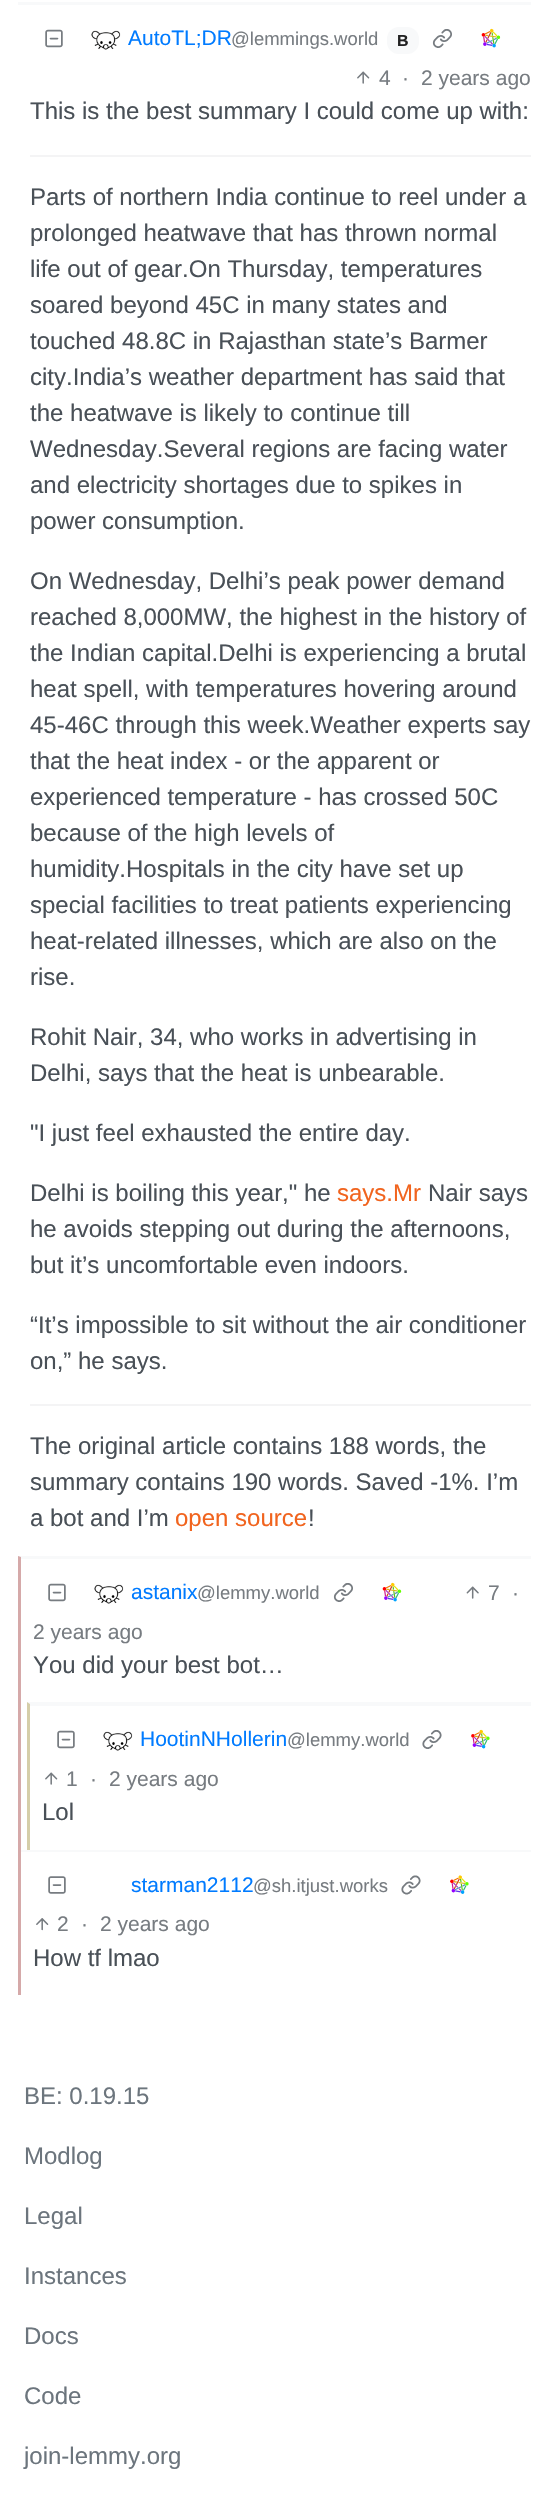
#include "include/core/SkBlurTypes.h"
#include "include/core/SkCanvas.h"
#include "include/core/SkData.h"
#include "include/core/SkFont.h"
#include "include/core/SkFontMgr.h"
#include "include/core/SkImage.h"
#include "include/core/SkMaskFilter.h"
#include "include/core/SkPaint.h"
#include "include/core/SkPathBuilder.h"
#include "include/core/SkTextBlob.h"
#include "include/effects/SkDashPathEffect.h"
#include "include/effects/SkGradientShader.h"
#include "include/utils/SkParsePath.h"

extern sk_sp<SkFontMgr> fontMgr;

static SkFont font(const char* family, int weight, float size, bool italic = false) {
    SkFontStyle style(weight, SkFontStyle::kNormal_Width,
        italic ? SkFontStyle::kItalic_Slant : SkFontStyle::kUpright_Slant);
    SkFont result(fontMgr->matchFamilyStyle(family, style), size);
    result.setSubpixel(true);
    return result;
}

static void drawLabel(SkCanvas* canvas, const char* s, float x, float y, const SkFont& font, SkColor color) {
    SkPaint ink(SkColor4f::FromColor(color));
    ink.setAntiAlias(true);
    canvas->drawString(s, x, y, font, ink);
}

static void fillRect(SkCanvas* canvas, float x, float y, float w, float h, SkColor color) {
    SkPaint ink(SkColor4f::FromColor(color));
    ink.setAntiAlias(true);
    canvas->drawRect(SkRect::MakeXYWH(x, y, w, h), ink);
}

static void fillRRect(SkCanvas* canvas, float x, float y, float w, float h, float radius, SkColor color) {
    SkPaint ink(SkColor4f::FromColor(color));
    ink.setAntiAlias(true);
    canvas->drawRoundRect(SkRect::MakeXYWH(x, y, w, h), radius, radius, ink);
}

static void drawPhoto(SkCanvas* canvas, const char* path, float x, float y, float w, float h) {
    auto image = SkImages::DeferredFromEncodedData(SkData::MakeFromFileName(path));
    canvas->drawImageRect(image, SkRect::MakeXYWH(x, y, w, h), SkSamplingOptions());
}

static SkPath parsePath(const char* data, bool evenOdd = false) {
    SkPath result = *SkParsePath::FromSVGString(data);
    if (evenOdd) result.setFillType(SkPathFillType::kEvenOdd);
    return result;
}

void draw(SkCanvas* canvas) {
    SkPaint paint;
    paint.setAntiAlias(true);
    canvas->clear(0xFFFFFFFF);
    fillRect(canvas, 18, 2, 513, 3, 0xFFF8F9FA);
    drawPhoto(canvas, "assets/img1.png", 45, 29, 18, 19);
    drawPhoto(canvas, "assets/img2.png", 91, 30, 30, 20);
    SkFont font1 = font("Liberation Sans", 400, 21);
    drawLabel(canvas, "AutoTL;DR", 128, 45, font1, 0xFF007BFF);
    SkFont font2 = font("Liberation Sans", 400, 18.5f);
    drawLabel(canvas, "@lemmings.world", 231, 45, font2, 0xFF777C81);
    fillRRect(canvas, 387, 27, 32, 27, 12, 0xFFF8F9FA);
    SkFont font3 = font("Liberation Sans", 700, 16);
    drawLabel(canvas, "B", 397, 46, font3, 0xFF222222);
    drawPhoto(canvas, "assets/img3.png", 432, 29, 20, 19);
    drawPhoto(canvas, "assets/img4.png", 481, 28, 20, 20);
    drawPhoto(canvas, "assets/img5.png", 357, 71, 13, 13);
    drawLabel(canvas, "4", 379, 85, font1, 0xFF777C81);
    drawLabel(canvas, "·", 402, 85, font1, 0xFF777C81);
    drawLabel(canvas, "2 years ago", 421, 85, font1, 0xFF777C81);
    SkFont font4 = font("Liberation Sans", 400, 24);
    drawLabel(canvas, "This is the best summary I could come up with:", 30, 119, font4, 0xFF495057);
    fillRect(canvas, 30, 155, 501, 2, 0xFFF4F4F5);
    drawLabel(canvas, "Parts of northern India continue to reel under a", 30, 205, font4, 0xFF495057);
    drawLabel(canvas, "prolonged heatwave that has thrown normal", 30, 241, font4, 0xFF495057);
    drawLabel(canvas, "life out of gear.On Thursday, temperatures", 30, 277, font4, 0xFF495057);
    drawLabel(canvas, "soared beyond 45C in many states and", 30, 313, font4, 0xFF495057);
    drawLabel(canvas, "touched 48.8C in Rajasthan state’s Barmer", 30, 349, font4, 0xFF495057);
    drawLabel(canvas, "city.India’s weather department has said that", 30, 385, font4, 0xFF495057);
    drawLabel(canvas, "the heatwave is likely to continue till", 30, 421, font4, 0xFF495057);
    drawLabel(canvas, "Wednesday.Several regions are facing water", 30, 457, font4, 0xFF495057);
    drawLabel(canvas, "and electricity shortages due to spikes in", 30, 493, font4, 0xFF495057);
    drawLabel(canvas, "power consumption.", 30, 529, font4, 0xFF495057);
    drawLabel(canvas, "On Wednesday, Delhi’s peak power demand", 30, 589, font4, 0xFF495057);
    drawLabel(canvas, "reached 8,000MW, the highest in the history of", 30, 625, font4, 0xFF495057);
    drawLabel(canvas, "the Indian capital.Delhi is experiencing a brutal", 30, 661, font4, 0xFF495057);
    drawLabel(canvas, "heat spell, with temperatures hovering around", 30, 697, font4, 0xFF495057);
    drawLabel(canvas, "45-46C through this week.Weather experts say", 30, 733, font4, 0xFF495057);
    drawLabel(canvas, "that the heat index - or the apparent or", 30, 769, font4, 0xFF495057);
    drawLabel(canvas, "experienced temperature - has crossed 50C", 30, 805, font4, 0xFF495057);
    drawLabel(canvas, "because of the high levels of", 30, 841, font4, 0xFF495057);
    drawLabel(canvas, "humidity.Hospitals in the city have set up", 30, 877, font4, 0xFF495057);
    drawLabel(canvas, "special facilities to treat patients experiencing", 30, 913, font4, 0xFF495057);
    drawLabel(canvas, "heat-related illnesses, which are also on the", 30, 949, font4, 0xFF495057);
    drawLabel(canvas, "rise.", 30, 985, font4, 0xFF495057);
    drawLabel(canvas, "Rohit Nair, 34, who works in advertising in", 30, 1045, font4, 0xFF495057);
    drawLabel(canvas, "Delhi, says that the heat is unbearable.", 30, 1081, font4, 0xFF495057);
    drawLabel(canvas, "\"I just feel exhausted the entire day.", 30, 1141, font4, 0xFF495057);
    drawLabel(canvas, "Delhi is boiling this year,\" he", 30, 1201, font4, 0xFF495057);
    drawLabel(canvas, "says.Mr", 337, 1201, font4, 0xFFF1641E);
    drawLabel(canvas, "Nair says", 428, 1201, font4, 0xFF495057);
    drawLabel(canvas, "he avoids stepping out during the afternoons,", 30, 1237, font4, 0xFF495057);
    drawLabel(canvas, "but it’s uncomfortable even indoors.", 30, 1273, font4, 0xFF495057);
    drawLabel(canvas, "“It’s impossible to sit without the air conditioner", 30, 1333, font4, 0xFF495057);
    drawLabel(canvas, "on,” he says.", 30, 1369, font4, 0xFF495057);
    fillRect(canvas, 30, 1404, 501, 2, 0xFFF4F4F5);
    drawLabel(canvas, "The original article contains 188 words, the", 30, 1454, font4, 0xFF495057);
    drawLabel(canvas, "summary contains 190 words. Saved -1%. I’m", 30, 1490, font4, 0xFF495057);
    drawLabel(canvas, "a bot and I’m", 30, 1526, font4, 0xFF495057);
    drawLabel(canvas, "open source", 175, 1526, font4, 0xFFF1641E);
    drawLabel(canvas, "!", 308, 1526, font4, 0xFF495057);
    paint.setColor(0xFFF8F9FA);
    canvas->drawPath(parsePath("M18 1556H531V1557H21Z"), paint);
    paint.setColor(0x80AC5353);
    canvas->drawPath(parsePath("M18 1995V1556L21 1557V1995Z"), paint);
    fillRect(canvas, 21, 1557, 510, 2, 0xFFF8F9FA);
    drawPhoto(canvas, "assets/img1.png", 48, 1583, 18, 19);
    drawPhoto(canvas, "assets/img6.png", 94, 1584, 30, 20);
    drawLabel(canvas, "astanix", 131, 1599, font1, 0xFF007BFF);
    drawLabel(canvas, "@lemmy.world", 197, 1599, font2, 0xFF777C81);
    drawPhoto(canvas, "assets/img3.png", 333, 1583, 20, 19);
    drawPhoto(canvas, "assets/img7.png", 382, 1582, 20, 20);
    drawPhoto(canvas, "assets/img8.png", 466, 1586, 13, 13);
    drawLabel(canvas, "7", 488, 1600, font1, 0xFF777C81);
    drawLabel(canvas, "·", 512, 1600, font1, 0xFF777C81);
    drawLabel(canvas, "2 years ago", 33, 1639, font1, 0xFF777C81);
    drawLabel(canvas, "You did your best bot…", 33, 1673, font4, 0xFF495057);
    paint.setColor(0xFFF8F9FA);
    canvas->drawPath(parsePath("M27 1702H531V1704H30Z"), paint);
    paint.setColor(0xFFD5CEA9);
    canvas->drawPath(parsePath("M27 1850V1702L30 1704V1850Z"), paint);
    fillRect(canvas, 30, 1704, 501, 2, 0xFFF8F9FA);
    drawPhoto(canvas, "assets/img1.png", 57, 1730, 18, 19);
    drawPhoto(canvas, "assets/img6.png", 103, 1731, 30, 20);
    drawLabel(canvas, "HootinNHollerin", 140, 1746, font1, 0xFF007BFF);
    drawLabel(canvas, "@lemmy.world", 287, 1746, font2, 0xFF777C81);
    drawPhoto(canvas, "assets/img9.png", 422, 1730, 20, 19);
    drawPhoto(canvas, "assets/img10.png", 471, 1729, 19, 20);
    drawPhoto(canvas, "assets/img5.png", 45, 1772, 13, 13);
    drawLabel(canvas, "1", 66, 1786, font1, 0xFF777C81);
    drawLabel(canvas, "·", 90, 1786, font1, 0xFF777C81);
    drawLabel(canvas, "2 years ago", 109, 1786, font1, 0xFF777C81);
    drawLabel(canvas, "Lol", 42, 1820, font4, 0xFF495057);
    fillRect(canvas, 21, 1850, 510, 2, 0xFFF8F9FA);
    drawPhoto(canvas, "assets/img11.png", 48, 1876, 18, 18);
    drawLabel(canvas, "starman2112", 131, 1892, font1, 0xFF007BFF);
    drawLabel(canvas, "@sh.itjust.works", 253, 1892, font2, 0xFF777C81);
    drawPhoto(canvas, "assets/img12.png", 401, 1875, 20, 20);
    drawPhoto(canvas, "assets/img13.png", 450, 1875, 19, 19);
    drawPhoto(canvas, "assets/img14.png", 36, 1918, 13, 13);
    drawLabel(canvas, "2", 57, 1931, font1, 0xFF777C81);
    drawLabel(canvas, "·", 81, 1931, font1, 0xFF777C81);
    drawLabel(canvas, "2 years ago", 100, 1931, font1, 0xFF777C81);
    drawLabel(canvas, "How tf lmao", 33, 1966, font4, 0xFF495057);
    drawLabel(canvas, "BE: 0.19.15", 24, 2104, font4, 0xFF6C757D);
    drawLabel(canvas, "Modlog", 24, 2164, font4, 0xFF6C757D);
    drawLabel(canvas, "Legal", 24, 2224, font4, 0xFF6C757D);
    drawLabel(canvas, "Instances", 24, 2284, font4, 0xFF6C757D);
    drawLabel(canvas, "Docs", 24, 2344, font4, 0xFF6C757D);
    drawLabel(canvas, "Code", 24, 2404, font4, 0xFF6C757D);
    drawLabel(canvas, "join-lemmy.org", 24, 2464, font4, 0xFF6C757D);
}
